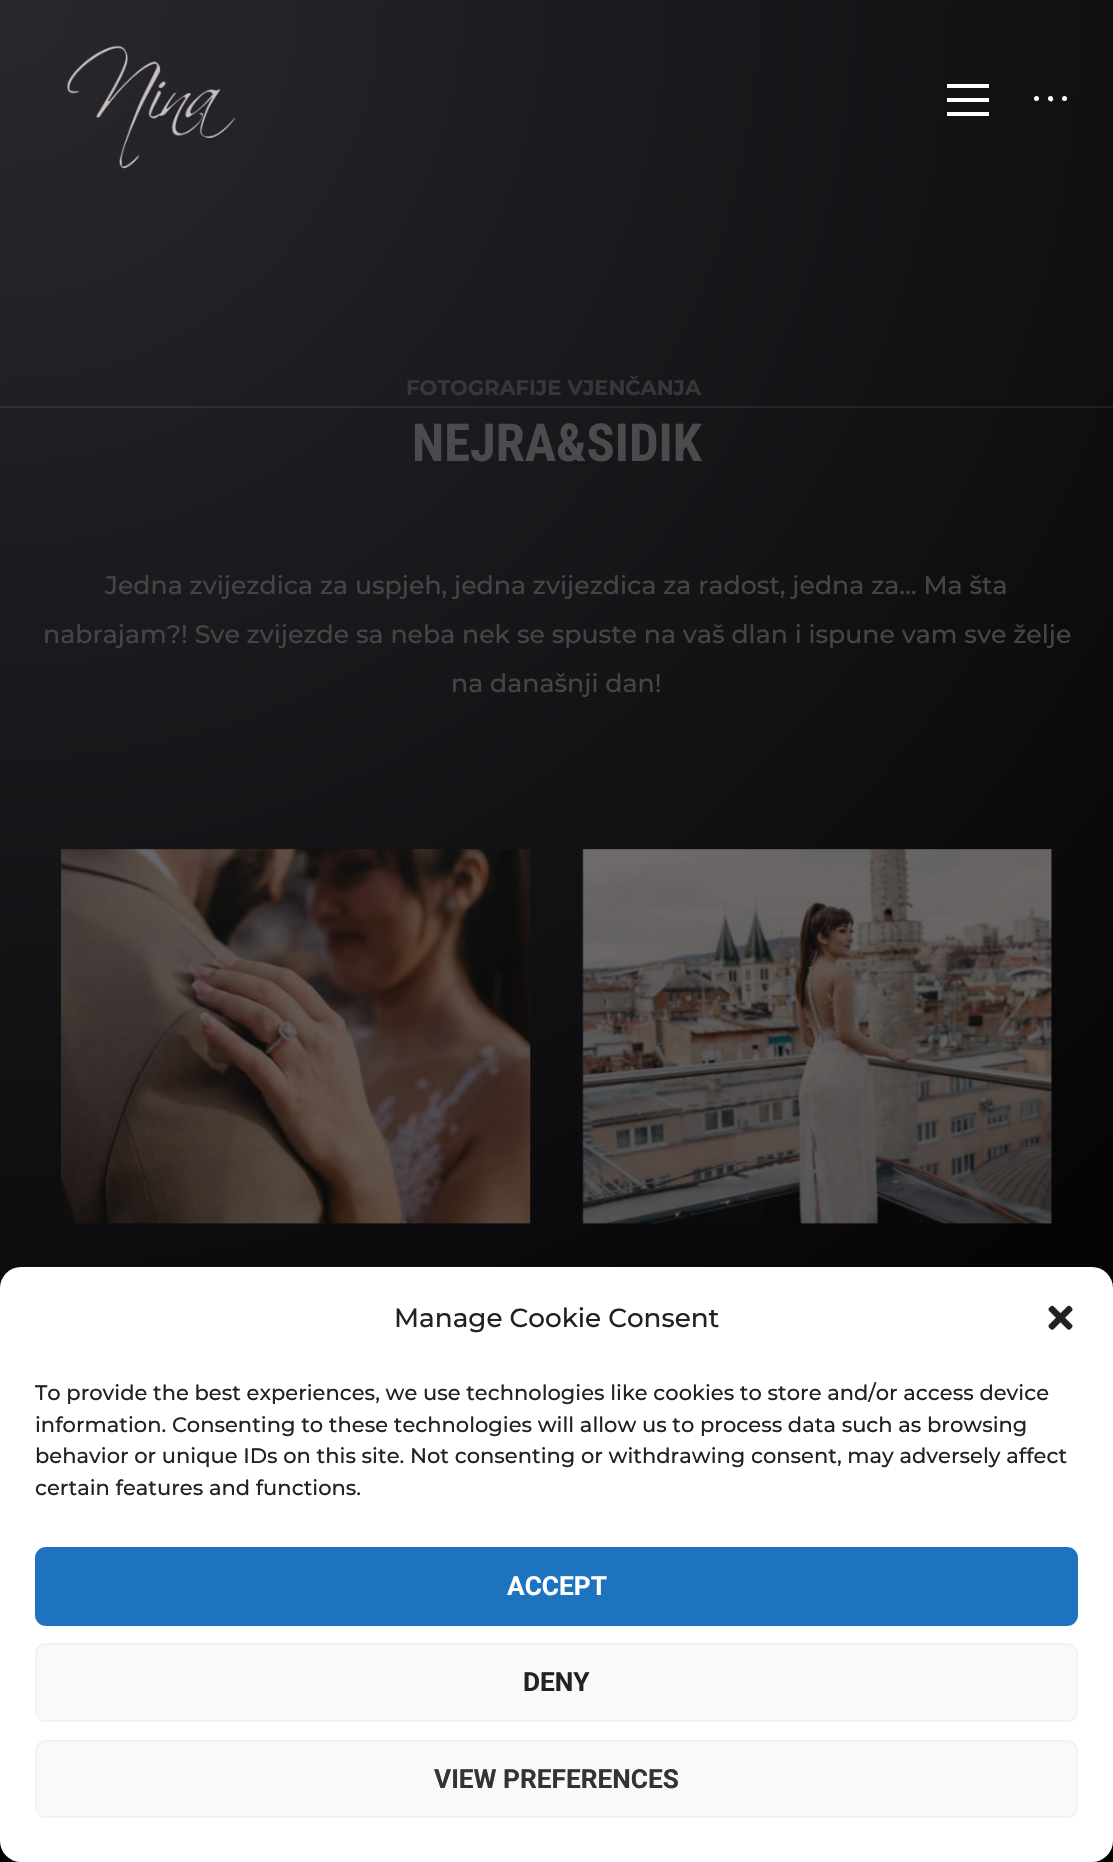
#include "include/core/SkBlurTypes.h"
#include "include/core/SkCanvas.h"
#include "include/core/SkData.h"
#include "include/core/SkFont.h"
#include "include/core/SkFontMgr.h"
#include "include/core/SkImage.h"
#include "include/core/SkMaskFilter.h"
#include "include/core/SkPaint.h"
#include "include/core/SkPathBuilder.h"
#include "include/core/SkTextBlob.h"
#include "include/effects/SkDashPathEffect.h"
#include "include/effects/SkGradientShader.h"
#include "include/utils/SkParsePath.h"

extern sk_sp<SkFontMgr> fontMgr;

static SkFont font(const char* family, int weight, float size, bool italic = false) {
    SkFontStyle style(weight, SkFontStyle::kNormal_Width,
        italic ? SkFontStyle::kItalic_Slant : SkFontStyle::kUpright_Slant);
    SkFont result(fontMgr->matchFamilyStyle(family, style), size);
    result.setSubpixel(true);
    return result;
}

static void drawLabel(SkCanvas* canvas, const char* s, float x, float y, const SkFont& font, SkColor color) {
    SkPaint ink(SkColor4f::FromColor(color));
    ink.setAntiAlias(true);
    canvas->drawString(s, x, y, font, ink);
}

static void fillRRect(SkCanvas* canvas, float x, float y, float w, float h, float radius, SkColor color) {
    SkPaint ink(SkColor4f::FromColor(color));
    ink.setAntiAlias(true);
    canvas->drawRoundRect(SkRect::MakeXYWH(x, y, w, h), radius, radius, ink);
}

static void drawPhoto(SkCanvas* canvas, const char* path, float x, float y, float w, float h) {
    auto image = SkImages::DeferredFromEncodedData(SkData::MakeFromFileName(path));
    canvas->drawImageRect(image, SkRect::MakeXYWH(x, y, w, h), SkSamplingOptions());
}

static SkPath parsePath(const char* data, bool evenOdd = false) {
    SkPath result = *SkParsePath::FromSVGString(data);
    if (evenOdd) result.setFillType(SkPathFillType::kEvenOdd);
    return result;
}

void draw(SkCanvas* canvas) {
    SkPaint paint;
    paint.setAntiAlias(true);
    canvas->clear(0xFFFFFFFF);
    {
        const SkColor colors[] = {0xFF28282E, 0xFF000000};
        const float stops[] = {0, 0.7f};
        paint.setShader(SkGradientShader::MakeRadial({0, 0}, 2633, colors, stops, 2, SkTileMode::kClamp));
        paint.setAlpha(255);
    }
    canvas->drawRect(SkRect::MakeXYWH(0, 0, 1113, 1862), paint);
    {
        const SkColor colors[] = {0xFF37373D, 0xFF121212};
        const float stops[] = {0, 0.7f};
        paint.setShader(SkGradientShader::MakeRadial({0, 0}, 2633, colors, stops, 2, SkTileMode::kClamp));
        paint.setAlpha(255);
    }
    canvas->drawRect(SkRect::MakeXYWH(0, 406, 1113, 2), paint);
    drawPhoto(canvas, "assets/img1.png", 67, 45, 169, 124);
    paint.setShader(nullptr);
    paint.setColor(0xFFFFFFFF);
    canvas->drawPath(parsePath("M947 84H989V88H947ZM947 98H989V102H947ZM947 112H989V116H947Z"), paint);
    canvas->drawCircle(1036.5f, 98.5f, 2.5f, paint);
    canvas->drawCircle(1050.5f, 98.5f, 2.5f, paint);
    canvas->drawPath(parsePath("M1048.5 99.5L1051 97L1053.5 99.5L1051 102Z"), paint);
    canvas->drawCircle(1064.5f, 98.5f, 2.5f, paint);
    SkFont font1 = font("Montserrat", 700, 21);
    drawLabel(canvas, "FOTOGRAFIJE VJENČANJA", 406, 395, font1, 0xFF37373A);
    SkFont font2 = font("Roboto Condensed", 700, 52.5f);
    drawLabel(canvas, "NEJRA&SIDIK", 412, 461, font2, 0xFF4B4B4E);
    SkFont font3 = font("Montserrat", 500, 25.2f);
    drawLabel(canvas, "Jedna zvijezdica za uspjeh, jedna zvijezdica za radost, jedna za… Ma šta", 105, 594, font3, 0xFF454546);
    drawLabel(canvas, "nabrajam?! Sve zvijezde sa neba nek se spuste na vaš dlan i ispune vam sve želje", 43, 643, font3, 0xFF454546);
    drawLabel(canvas, "na današnji dan!", 451, 692, font3, 0xFF454546);
    drawPhoto(canvas, "assets/img2.png", 61, 849, 470, 375);
    drawPhoto(canvas, "assets/img3.png", 582, 849, 470, 375);
    fillRRect(canvas, 0, 1267, 1113, 595, 21, 0xFFFFFFFF);
    SkFont font4 = font("Montserrat", 500, 26.25f);
    drawLabel(canvas, "Manage Cookie Consent", 394, 1327, font4, 0xFF222222);
    drawPhoto(canvas, "assets/img4.png", 1048, 1305, 25, 25);
    SkFont font5 = font("Montserrat", 500, 21);
    drawLabel(canvas, "To provide the best experiences, we use technologies like cookies to store and/or access device", 35, 1400, font5, 0xFF222222);
    drawLabel(canvas, "information. Consenting to these technologies will allow us to process data such as browsing", 35, 1432, font5, 0xFF222222);
    drawLabel(canvas, "behavior or unique IDs on this site. Not consenting or withdrawing consent, may adversely affect", 35, 1463, font5, 0xFF222222);
    drawLabel(canvas, "certain features and functions.", 35, 1495, font5, 0xFF222222);
    paint.setColor(0xFF1E73BE);
    canvas->drawRoundRect(SkRect::MakeXYWH(36, 1548, 1041, 77), 10, 10, paint);
    paint.setStroke(true);
    paint.setStrokeWidth(2);
    canvas->drawRoundRect(SkRect::MakeXYWH(36, 1548, 1041, 77), 10, 10, paint);
    SkFont font6 = font("Roboto", 700, 26.25f);
    drawLabel(canvas, "ACCEPT", 507, 1595, font6, 0xFFFFFFFF);
    paint.setStroke(false);
    paint.setColor(0xFFF9F9F9);
    canvas->drawRoundRect(SkRect::MakeXYWH(36, 1644, 1041, 77), 10, 10, paint);
    paint.setStroke(true);
    paint.setColor(0xFFF2F2F2);
    canvas->drawRoundRect(SkRect::MakeXYWH(36, 1644, 1041, 77), 10, 10, paint);
    drawLabel(canvas, "DENY", 523, 1691, font6, 0xFF222222);
    paint.setStroke(false);
    paint.setColor(0xFFF9F9F9);
    canvas->drawRoundRect(SkRect::MakeXYWH(36, 1741, 1041, 76), 10, 10, paint);
    paint.setStroke(true);
    paint.setColor(0xFFF2F2F2);
    canvas->drawRoundRect(SkRect::MakeXYWH(36, 1741, 1041, 76), 10, 10, paint);
    drawLabel(canvas, "VIEW PREFERENCES", 434, 1788, font6, 0xFF333333);
}
